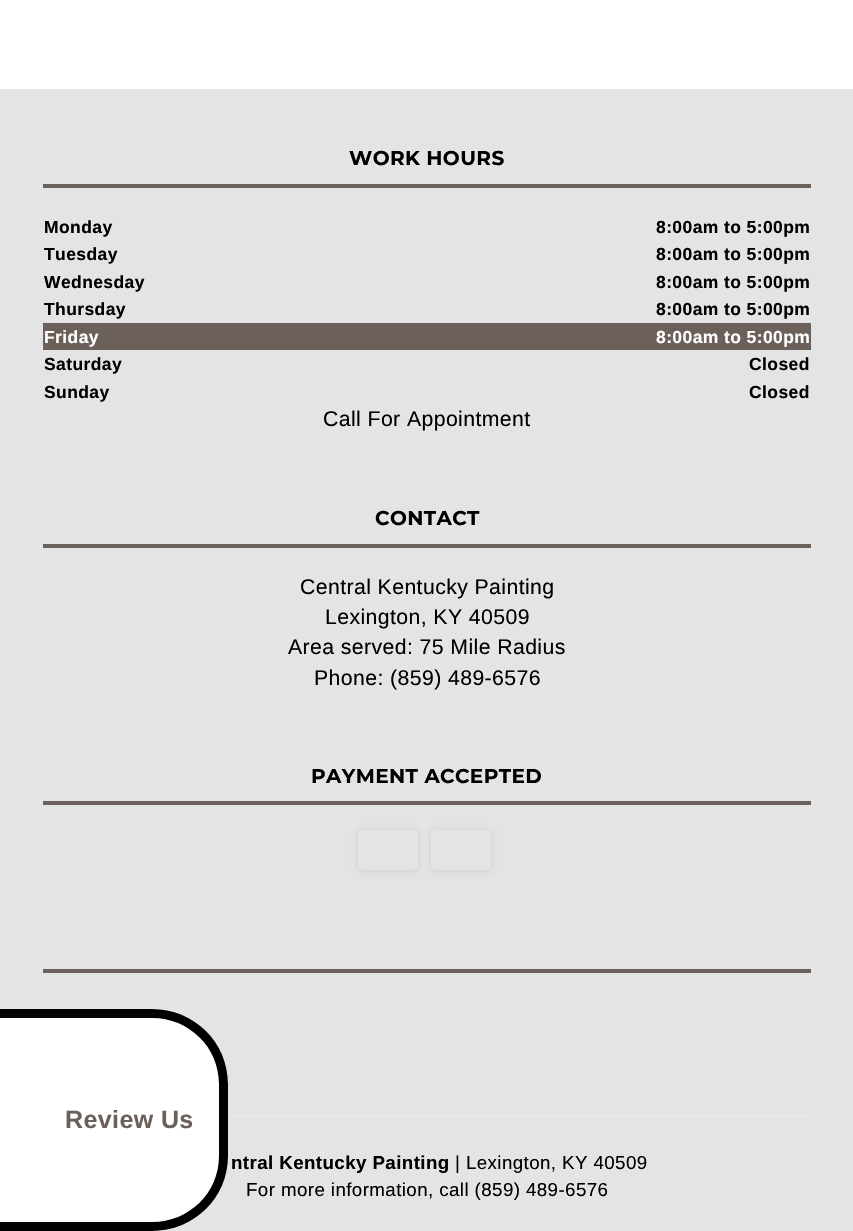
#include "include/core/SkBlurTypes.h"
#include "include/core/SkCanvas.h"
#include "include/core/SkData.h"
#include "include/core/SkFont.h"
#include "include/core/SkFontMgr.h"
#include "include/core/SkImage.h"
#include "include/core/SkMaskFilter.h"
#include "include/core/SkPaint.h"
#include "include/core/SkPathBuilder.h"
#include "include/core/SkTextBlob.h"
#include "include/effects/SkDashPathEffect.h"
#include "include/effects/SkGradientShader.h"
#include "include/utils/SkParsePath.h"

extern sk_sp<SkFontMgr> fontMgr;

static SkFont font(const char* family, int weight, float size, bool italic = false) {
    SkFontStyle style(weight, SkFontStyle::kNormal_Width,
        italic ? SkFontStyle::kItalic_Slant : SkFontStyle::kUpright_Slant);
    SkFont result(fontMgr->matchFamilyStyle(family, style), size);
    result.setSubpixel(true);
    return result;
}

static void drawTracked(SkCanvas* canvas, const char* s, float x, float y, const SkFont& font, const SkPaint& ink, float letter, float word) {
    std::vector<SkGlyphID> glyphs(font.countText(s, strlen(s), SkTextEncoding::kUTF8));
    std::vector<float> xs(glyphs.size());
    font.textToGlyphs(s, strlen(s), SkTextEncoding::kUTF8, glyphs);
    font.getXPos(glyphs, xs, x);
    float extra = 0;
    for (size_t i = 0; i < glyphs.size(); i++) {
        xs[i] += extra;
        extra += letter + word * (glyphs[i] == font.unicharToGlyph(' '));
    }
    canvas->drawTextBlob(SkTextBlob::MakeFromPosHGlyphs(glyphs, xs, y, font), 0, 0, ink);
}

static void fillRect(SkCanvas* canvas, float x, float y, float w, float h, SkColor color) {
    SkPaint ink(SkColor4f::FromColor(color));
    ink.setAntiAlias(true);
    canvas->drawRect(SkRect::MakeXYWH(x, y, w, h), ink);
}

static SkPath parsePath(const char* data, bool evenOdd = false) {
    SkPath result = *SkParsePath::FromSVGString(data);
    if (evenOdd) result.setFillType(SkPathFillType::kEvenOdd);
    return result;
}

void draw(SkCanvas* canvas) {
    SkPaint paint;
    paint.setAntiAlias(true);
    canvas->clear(0xFFFFFFFF);
    fillRect(canvas, 0, 89, 853, 1142, 0xFFE4E4E4);
    SkFont font1 = font("Montserrat", 700, 20);
    paint.setColor(0xFF000000);
    drawTracked(canvas, "WORK HOURS", 349, 165, font1, paint, 0.4f, 0);
    fillRect(canvas, 43, 184, 768, 4, 0xFF6C605A);
    SkFont font2 = font("Arimo", 700, 17.5f);
    drawTracked(canvas, "Monday", 44, 233, font2, paint, 0.4f, 0);
    drawTracked(canvas, "8:00am to 5:00pm", 656, 233, font2, paint, 0.4f, 0);
    drawTracked(canvas, "Tuesday", 44, 260, font2, paint, 0.4f, 0);
    drawTracked(canvas, "8:00am to 5:00pm", 656, 260, font2, paint, 0.4f, 0);
    drawTracked(canvas, "Wednesday", 44, 288, font2, paint, 0.4f, 0);
    drawTracked(canvas, "8:00am to 5:00pm", 656, 288, font2, paint, 0.4f, 0);
    drawTracked(canvas, "Thursday", 44, 315, font2, paint, 0.4f, 0);
    drawTracked(canvas, "8:00am to 5:00pm", 656, 315, font2, paint, 0.4f, 0);
    fillRect(canvas, 43, 323, 768, 27, 0xFF6C605A);
    paint.setColor(0xFFFFFFFF);
    drawTracked(canvas, "Friday", 44, 343, font2, paint, 0.4f, 0);
    drawTracked(canvas, "8:00am to 5:00pm", 656, 343, font2, paint, 0.4f, 0);
    paint.setColor(0xFF000000);
    drawTracked(canvas, "Saturday", 44, 370, font2, paint, 0.4f, 0);
    drawTracked(canvas, "Closed", 749, 370, font2, paint, 0.4f, 0);
    drawTracked(canvas, "Sunday", 44, 398, font2, paint, 0.4f, 0);
    drawTracked(canvas, "Closed", 749, 398, font2, paint, 0.4f, 0);
    SkFont font3 = font("Arimo", 400, 21.25f);
    drawTracked(canvas, "Call For Appointment", 323, 426, font3, paint, 0.4f, 0);
    drawTracked(canvas, "CONTACT", 375, 525, font1, paint, 0.4f, 0);
    fillRect(canvas, 43, 544, 768, 4, 0xFF6C605A);
    drawTracked(canvas, "Central Kentucky Painting", 300, 594, font3, paint, 0.4f, 0);
    drawTracked(canvas, "Lexington, KY 40509", 325, 624, font3, paint, 0.4f, 0);
    drawTracked(canvas, "Area served: 75 Mile Radius", 288, 654, font3, paint, 0.4f, 0);
    drawTracked(canvas, "Phone: (859) 489-6576", 314, 685, font3, paint, 0.4f, 0);
    drawTracked(canvas, "PAYMENT ACCEPTED", 311, 783, font1, paint, 0.4f, 0);
    fillRect(canvas, 43, 801, 768, 4, 0xFF6C605A);
    canvas->save();
    canvas->clipPath(parsePath("M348 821H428V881H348ZM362 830H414C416 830 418 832 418 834V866C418 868 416 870 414 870H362C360 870 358 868 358 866V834C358 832 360 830 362 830Z", true), true);
    paint.setColor(0x1A000000);
    paint.setMaskFilter(SkMaskFilter::MakeBlur(kNormal_SkBlurStyle, 3));
    canvas->drawRoundRect(SkRect::MakeXYWH(358, 831, 60, 40), 4, 4, paint);
    paint.setMaskFilter(nullptr);
    canvas->restore();
    canvas->save();
    canvas->clipPath(parsePath("M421 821H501V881H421ZM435 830H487C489 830 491 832 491 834V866C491 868 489 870 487 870H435C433 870 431 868 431 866V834C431 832 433 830 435 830Z", true), true);
    paint.setMaskFilter(SkMaskFilter::MakeBlur(kNormal_SkBlurStyle, 3));
    canvas->drawRoundRect(SkRect::MakeXYWH(431, 831, 60, 40), 4, 4, paint);
    paint.setMaskFilter(nullptr);
    canvas->restore();
    fillRect(canvas, 43, 969, 768, 4, 0xFF6C605A);
    paint.setColor(0xFFFFFFFF);
    canvas->drawPath(parsePath("M0 1009H153C194.5 1009 228 1042.5 228 1084V1156C228 1197.5 194.5 1231 153 1231H0Z"), paint);
    paint.setColor(0xFF000000);
    canvas->drawPath(parsePath("M0 1009H152C194 1009 228 1042 228 1084V1156C228 1198 194 1231 152 1231H0ZM0 1018H152C189 1018 219 1047 219 1084V1156C219 1193 189 1222 152 1222H0Z", true), paint);
    SkFont font4 = font("Arimo", 700, 25);
    paint.setColor(0xFF6C605A);
    drawTracked(canvas, "Review Us", 65, 1128, font4, paint, 0.4f, 0);
    fillRect(canvas, 228, 1115, 583, 3, 0xFFE7E7E7);
    SkFont font5 = font("Arimo", 700, 18.75f);
    paint.setColor(0xFF000000);
    drawTracked(canvas, "ntral Kentucky Painting", 231, 1169, font5, paint, 0.4f, 0);
    SkFont font6 = font("Arimo", 400, 18.75f);
    drawTracked(canvas, "| Lexington, KY 40509", 455, 1169, font6, paint, 0.4f, 0);
    drawTracked(canvas, "For more information, call (859) 489-6576", 246, 1196, font6, paint, 0.4f, 0);
}
